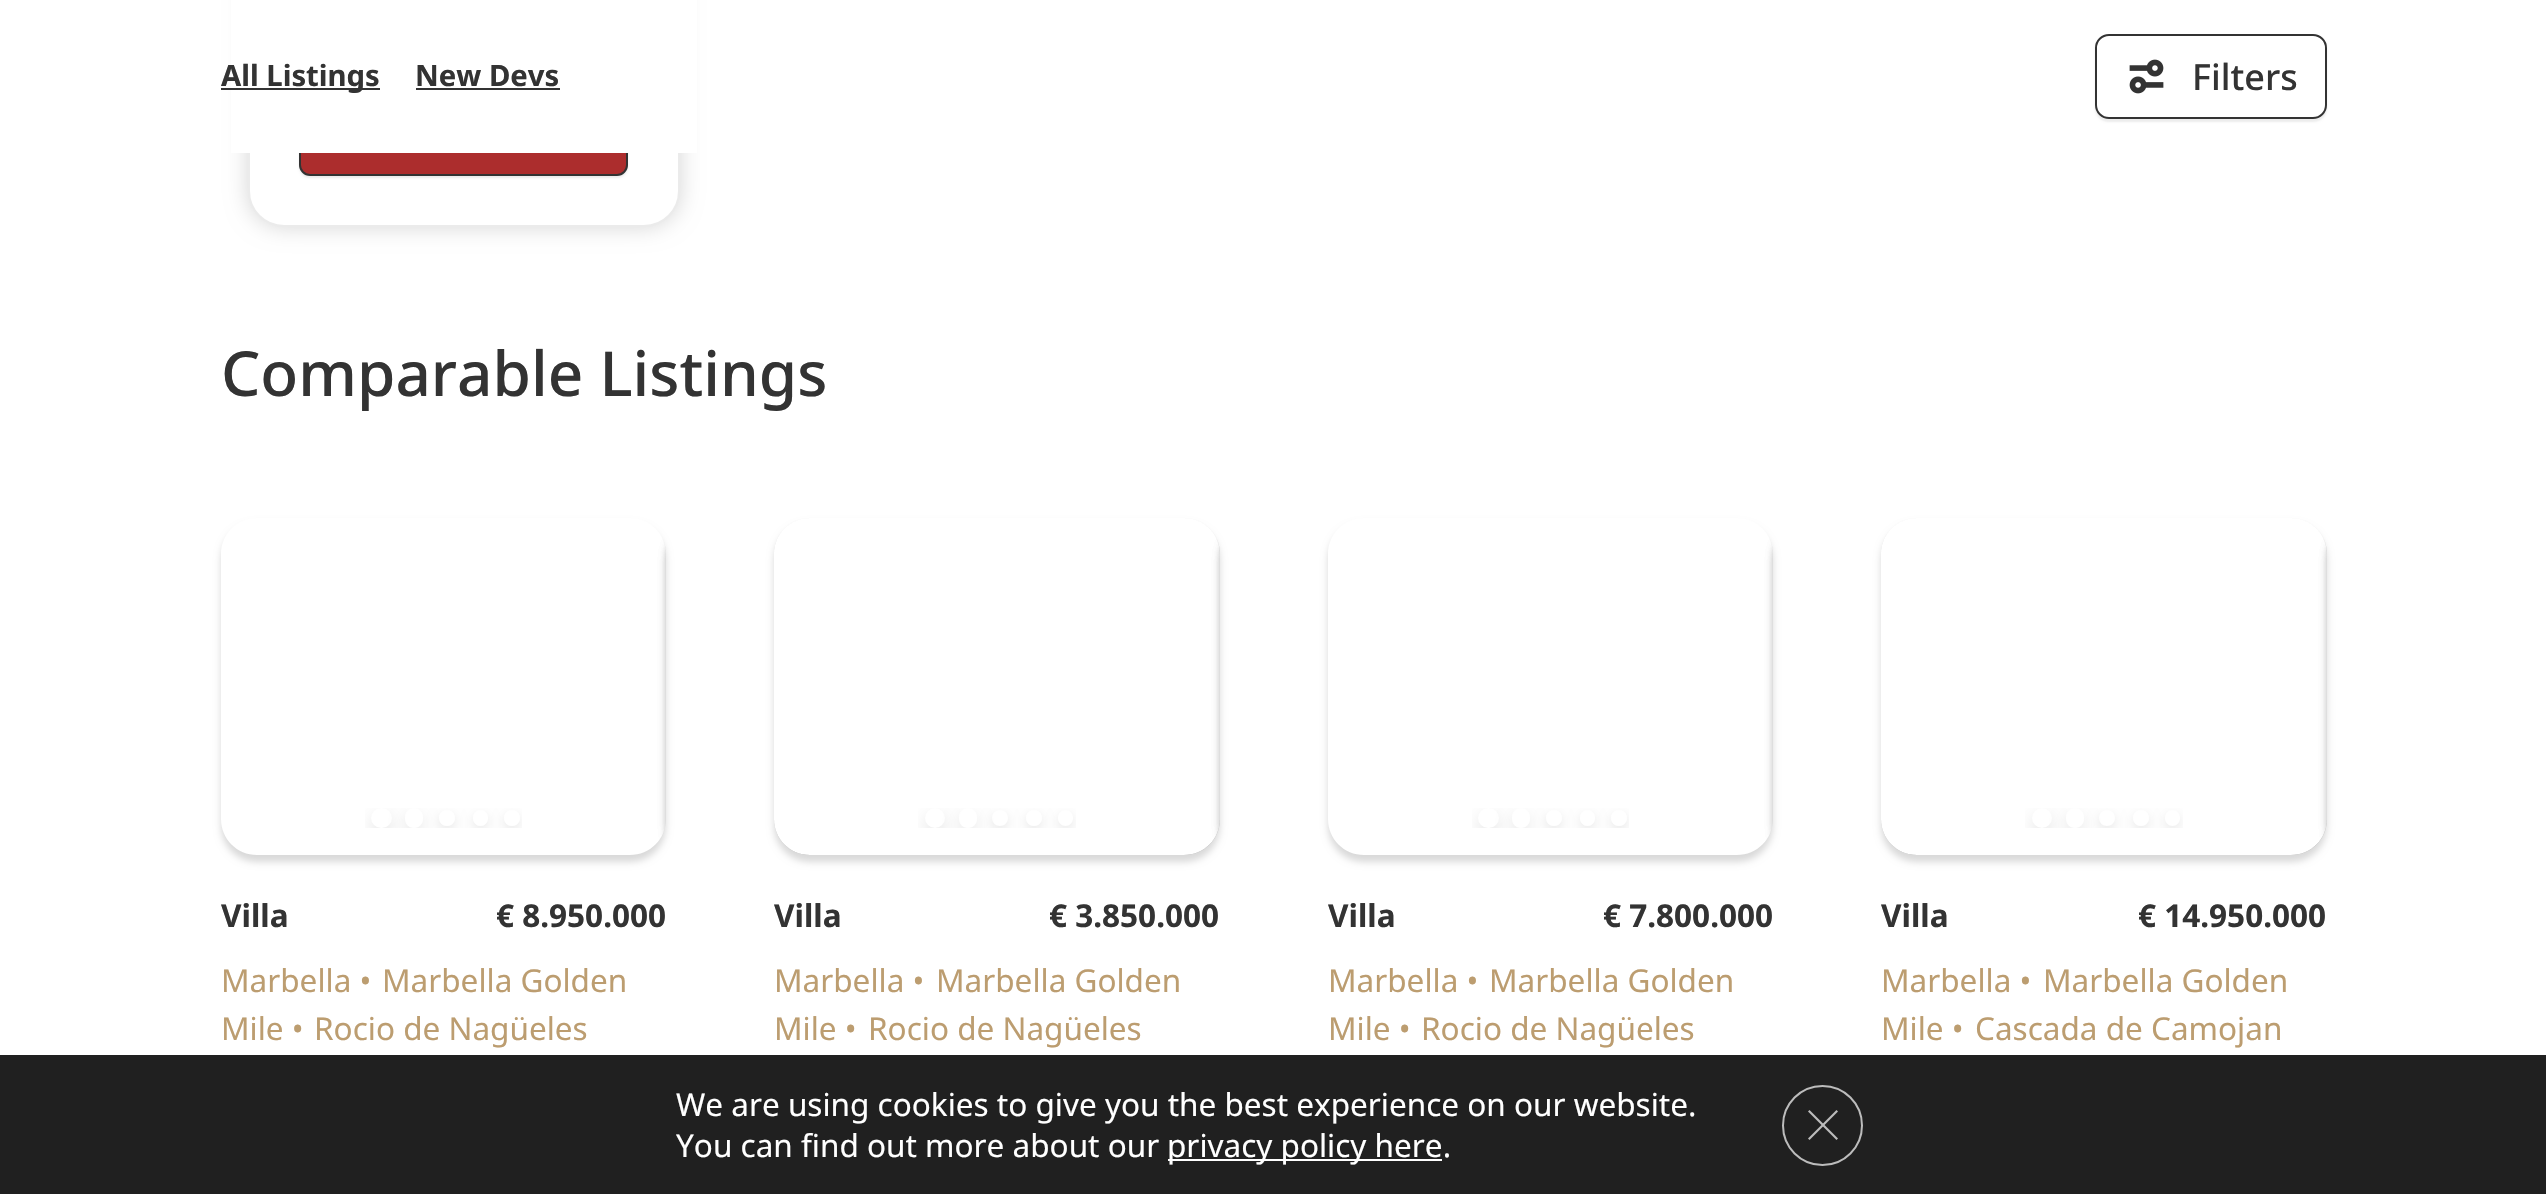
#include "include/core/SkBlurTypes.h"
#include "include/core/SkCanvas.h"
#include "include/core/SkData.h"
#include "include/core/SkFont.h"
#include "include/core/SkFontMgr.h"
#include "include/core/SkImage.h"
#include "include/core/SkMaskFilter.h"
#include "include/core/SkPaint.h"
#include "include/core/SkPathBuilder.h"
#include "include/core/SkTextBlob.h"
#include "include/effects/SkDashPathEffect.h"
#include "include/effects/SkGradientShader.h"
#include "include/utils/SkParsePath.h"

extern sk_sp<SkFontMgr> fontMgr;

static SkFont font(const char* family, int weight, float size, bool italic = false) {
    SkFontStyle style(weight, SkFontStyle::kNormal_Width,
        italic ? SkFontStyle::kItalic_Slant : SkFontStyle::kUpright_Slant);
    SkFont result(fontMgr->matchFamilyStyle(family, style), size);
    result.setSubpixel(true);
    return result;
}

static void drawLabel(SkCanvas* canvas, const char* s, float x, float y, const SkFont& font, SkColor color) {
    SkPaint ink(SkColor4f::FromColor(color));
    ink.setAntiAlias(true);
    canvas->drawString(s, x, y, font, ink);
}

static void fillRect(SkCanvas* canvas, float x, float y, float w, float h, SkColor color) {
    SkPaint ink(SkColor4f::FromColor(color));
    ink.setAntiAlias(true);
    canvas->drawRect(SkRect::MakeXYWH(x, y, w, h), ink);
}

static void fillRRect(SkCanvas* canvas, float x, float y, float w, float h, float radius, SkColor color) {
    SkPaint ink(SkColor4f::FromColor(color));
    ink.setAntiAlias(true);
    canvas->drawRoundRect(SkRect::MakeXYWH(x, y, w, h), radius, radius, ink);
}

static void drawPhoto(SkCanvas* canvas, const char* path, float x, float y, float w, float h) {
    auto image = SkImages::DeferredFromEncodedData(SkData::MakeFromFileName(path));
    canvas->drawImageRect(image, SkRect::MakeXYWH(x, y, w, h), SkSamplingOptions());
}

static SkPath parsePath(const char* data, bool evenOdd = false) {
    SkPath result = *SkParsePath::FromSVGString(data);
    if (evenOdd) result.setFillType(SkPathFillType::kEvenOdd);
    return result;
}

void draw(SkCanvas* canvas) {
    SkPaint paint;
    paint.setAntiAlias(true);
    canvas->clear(0xFFFFFFFF);
    paint.setColor(0x29000000);
    paint.setMaskFilter(SkMaskFilter::MakeBlur(kNormal_SkBlurStyle, 11));
    canvas->drawRoundRect(SkRect::MakeXYWH(248, -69, 432, 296), 36, 36, paint);
    paint.setMaskFilter(nullptr);
    paint.setColor(0xFFFFFFFF);
    canvas->drawRoundRect(SkRect::MakeXYWH(249, -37, 430, 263), 35, 35, paint);
    paint.setStroke(true);
    paint.setStrokeWidth(2);
    paint.setColor(0xFFEBEBEB);
    canvas->drawRoundRect(SkRect::MakeXYWH(249, -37, 430, 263), 35, 35, paint);
    paint.setStroke(false);
    paint.setColor(0x12000000);
    paint.setMaskFilter(SkMaskFilter::MakeBlur(kNormal_SkBlurStyle, 1));
    canvas->drawRoundRect(SkRect::MakeXYWH(299, 92, 329, 86), 11, 11, paint);
    paint.setMaskFilter(nullptr);
    paint.setColor(0xFFAC2D2D);
    canvas->drawRoundRect(SkRect::MakeXYWH(300, 91, 327, 84), 10, 10, paint);
    paint.setStroke(true);
    paint.setColor(0xFF333333);
    canvas->drawRoundRect(SkRect::MakeXYWH(300, 91, 327, 84), 10, 10, paint);
    fillRect(canvas, 231, 0, 466, 153, 0xFFFFFFFF);
    fillRect(canvas, 221, 88, 159, 2, 0xFF333333);
    SkFont font1 = font("Noto Sans", 700, 29.25f);
    drawLabel(canvas, "All Listings", 221, 86, font1, 0xFF333333);
    drawLabel(canvas, "New Devs", 415, 86, font1, 0xFF333333);
    fillRect(canvas, 416, 88, 144, 2, 0xFF333333);
    canvas->save();
    canvas->clipPath(parsePath("M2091 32H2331V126H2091ZM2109 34H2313C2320.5 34 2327 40.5 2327 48V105C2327 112.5 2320.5 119 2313 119H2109C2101.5 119 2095 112.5 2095 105V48C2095 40.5 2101.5 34 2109 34Z", true), true);
    paint.setStroke(false);
    paint.setColor(0x12000000);
    paint.setMaskFilter(SkMaskFilter::MakeBlur(kNormal_SkBlurStyle, 1));
    canvas->drawRoundRect(SkRect::MakeXYWH(2095, 36, 232, 86), 14, 14, paint);
    paint.setMaskFilter(nullptr);
    canvas->restore();
    paint.setStroke(true);
    paint.setColor(0xFF333333);
    canvas->drawRoundRect(SkRect::MakeXYWH(2096, 35, 230, 83), 13, 13, paint);
    drawPhoto(canvas, "assets/img1.png", 2129, 59, 35, 35);
    SkFont font2 = font("Noto Sans", 500, 36);
    drawLabel(canvas, "Filters", 2192, 90, font2, 0xFF333333);
    SkFont font3 = font("Noto Sans", 500, 62);
    drawLabel(canvas, "Comparable Listings", 221, 396, font3, 0xFF333333);
    canvas->save();
    canvas->clipPath(parsePath("M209 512H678V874H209ZM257 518H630C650 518 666 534 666 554V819C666 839 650 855 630 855H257C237 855 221 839 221 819V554C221 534 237 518 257 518Z", true), true);
    paint.setStroke(false);
    paint.setColor(0x26000000);
    paint.setMaskFilter(SkMaskFilter::MakeBlur(kNormal_SkBlurStyle, 3.5f));
    canvas->drawRoundRect(SkRect::MakeXYWH(221, 524, 445, 338), 36, 36, paint);
    paint.setMaskFilter(nullptr);
    canvas->restore();
    canvas->save();
    canvas->clipPath(parsePath("M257 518H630C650 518 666 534 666 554V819C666 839 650 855 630 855H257C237 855 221 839 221 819V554C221 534 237 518 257 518Z"), true);
    paint.setMaskFilter(SkMaskFilter::MakeBlur(kNormal_SkBlurStyle, 3.5f));
    canvas->drawRoundRect(SkRect::MakeXYWH(666, 524, 446, 338), 36, 36, paint);
    paint.setMaskFilter(nullptr);
    paint.setMaskFilter(SkMaskFilter::MakeBlur(kNormal_SkBlurStyle, 3.5f));
    canvas->drawRoundRect(SkRect::MakeXYWH(666, 524, 446, 338), 36, 36, paint);
    paint.setMaskFilter(nullptr);
    canvas->restore();
    canvas->save();
    canvas->clipRect(SkRect::MakeXYWH(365, 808, 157, 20));
    paint.setColor(0x1A000000);
    paint.setMaskFilter(SkMaskFilter::MakeBlur(kNormal_SkBlurStyle, 8));
    canvas->drawRoundRect(SkRect::MakeXYWH(371, 815, 21, 20), 10, 10, paint);
    paint.setMaskFilter(nullptr);
    canvas->restore();
    fillRRect(canvas, 371, 808, 21, 20, 10, 0xFFFFFFFF);
    canvas->save();
    canvas->clipRect(SkRect::MakeXYWH(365, 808, 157, 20));
    canvas->clipPath(parsePath("M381 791H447V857H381ZM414 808C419 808 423 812 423 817V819C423 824 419 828 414 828C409 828 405 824 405 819V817C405 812 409 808 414 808Z", true), true);
    paint.setMaskFilter(SkMaskFilter::MakeBlur(kNormal_SkBlurStyle, 7.5f));
    canvas->drawRoundRect(SkRect::MakeXYWH(405, 815, 18, 18), 9, 9, paint);
    paint.setMaskFilter(nullptr);
    canvas->restore();
    fillRRect(canvas, 405, 808, 18, 20, 9, 0x80FFFFFF);
    canvas->save();
    canvas->clipRect(SkRect::MakeXYWH(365, 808, 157, 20));
    canvas->clipPath(parsePath("M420 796H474V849H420ZM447 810C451.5 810 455 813.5 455 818C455 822.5 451.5 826 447 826C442.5 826 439 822.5 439 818C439 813.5 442.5 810 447 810Z", true), true);
    paint.setMaskFilter(SkMaskFilter::MakeBlur(kNormal_SkBlurStyle, 6));
    canvas->drawRoundRect(SkRect::MakeXYWH(439, 815, 16, 15), 7.5f, 7.5f, paint);
    paint.setMaskFilter(nullptr);
    canvas->restore();
    paint.setColor(0x80FFFFFF);
    canvas->drawCircle(447, 818, 8, paint);
    canvas->save();
    canvas->clipRect(SkRect::MakeXYWH(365, 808, 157, 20));
    canvas->clipPath(parsePath("M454 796H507V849H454ZM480.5 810C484.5 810 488 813.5 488 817.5V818.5C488 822.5 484.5 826 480.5 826C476.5 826 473 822.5 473 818.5V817.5C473 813.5 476.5 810 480.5 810Z", true), true);
    paint.setColor(0x1A000000);
    paint.setMaskFilter(SkMaskFilter::MakeBlur(kNormal_SkBlurStyle, 6));
    canvas->drawRoundRect(SkRect::MakeXYWH(473, 815, 15, 15), 7.5f, 7.5f, paint);
    paint.setMaskFilter(nullptr);
    canvas->restore();
    fillRRect(canvas, 473, 810, 15, 16, 7.5f, 0x80FFFFFF);
    canvas->save();
    canvas->clipRect(SkRect::MakeXYWH(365, 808, 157, 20));
    canvas->clipPath(parsePath("M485 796H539V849H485ZM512 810C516.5 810 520 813.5 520 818C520 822.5 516.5 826 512 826C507.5 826 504 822.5 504 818C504 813.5 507.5 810 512 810Z", true), true);
    paint.setMaskFilter(SkMaskFilter::MakeBlur(kNormal_SkBlurStyle, 6));
    canvas->drawRoundRect(SkRect::MakeXYWH(504, 815, 16, 15), 7.5f, 7.5f, paint);
    paint.setMaskFilter(nullptr);
    canvas->restore();
    paint.setColor(0x80FFFFFF);
    canvas->drawCircle(512, 818, 8, paint);
    SkFont font4 = font("Noto Sans", 700, 31.5f);
    drawLabel(canvas, "Villa", 221, 927, font4, 0xFF333333);
    drawLabel(canvas, "€ 8.950.000", 496, 927, font4, 0xFF333333);
    SkFont font5 = font("Noto Sans", 400, 31.5f);
    drawLabel(canvas, "Marbella •", 221, 992, font5, 0xFFBC9D70);
    drawLabel(canvas, "Marbella Golden", 382, 992, font5, 0xFFBC9D70);
    drawLabel(canvas, "Mile •", 221, 1040, font5, 0xFFBC9D70);
    drawLabel(canvas, "Rocio de Nagüeles", 314, 1040, font5, 0xFFBC9D70);
    canvas->save();
    canvas->clipPath(parsePath("M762 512H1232V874H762ZM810 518H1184C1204 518 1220 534 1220 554V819C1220 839 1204 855 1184 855H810C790 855 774 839 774 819V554C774 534 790 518 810 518Z", true), true);
    paint.setColor(0x26000000);
    paint.setMaskFilter(SkMaskFilter::MakeBlur(kNormal_SkBlurStyle, 3.5f));
    canvas->drawRoundRect(SkRect::MakeXYWH(774, 524, 446, 338), 36, 36, paint);
    paint.setMaskFilter(nullptr);
    canvas->restore();
    canvas->save();
    canvas->clipPath(parsePath("M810 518H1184C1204 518 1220 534 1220 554V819C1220 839 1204 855 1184 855H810C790 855 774 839 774 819V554C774 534 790 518 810 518Z"), true);
    canvas->clipPath(parsePath("M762 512H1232V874H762ZM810 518H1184C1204 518 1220 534 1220 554V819C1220 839 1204 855 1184 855H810C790 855 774 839 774 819V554C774 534 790 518 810 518Z", true), true);
    paint.setMaskFilter(SkMaskFilter::MakeBlur(kNormal_SkBlurStyle, 3.5f));
    canvas->drawRoundRect(SkRect::MakeXYWH(774, 524, 446, 338), 36, 36, paint);
    paint.setMaskFilter(nullptr);
    paint.setMaskFilter(SkMaskFilter::MakeBlur(kNormal_SkBlurStyle, 3.5f));
    canvas->drawRoundRect(SkRect::MakeXYWH(774, 524, 446, 338), 36, 36, paint);
    paint.setMaskFilter(nullptr);
    canvas->restore();
    canvas->save();
    canvas->clipPath(parsePath("M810 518H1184C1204 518 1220 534 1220 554V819C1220 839 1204 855 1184 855H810C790 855 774 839 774 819V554C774 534 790 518 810 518Z"), true);
    paint.setMaskFilter(SkMaskFilter::MakeBlur(kNormal_SkBlurStyle, 3.5f));
    canvas->drawRoundRect(SkRect::MakeXYWH(1220, 524, 445, 338), 36, 36, paint);
    paint.setMaskFilter(nullptr);
    paint.setMaskFilter(SkMaskFilter::MakeBlur(kNormal_SkBlurStyle, 3.5f));
    canvas->drawRoundRect(SkRect::MakeXYWH(1220, 524, 445, 338), 36, 36, paint);
    paint.setMaskFilter(nullptr);
    canvas->restore();
    canvas->save();
    canvas->clipRect(SkRect::MakeXYWH(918, 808, 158, 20));
    paint.setColor(0x1A000000);
    paint.setMaskFilter(SkMaskFilter::MakeBlur(kNormal_SkBlurStyle, 8));
    canvas->drawRoundRect(SkRect::MakeXYWH(925, 815, 20, 20), 10, 10, paint);
    paint.setMaskFilter(nullptr);
    canvas->restore();
    paint.setColor(0xFFFFFFFF);
    canvas->drawCircle(935, 818, 10, paint);
    canvas->save();
    canvas->clipRect(SkRect::MakeXYWH(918, 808, 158, 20));
    canvas->clipPath(parsePath("M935 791H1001V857H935ZM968 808C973 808 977 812 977 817V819C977 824 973 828 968 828C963 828 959 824 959 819V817C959 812 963 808 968 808Z", true), true);
    paint.setColor(0x1A000000);
    paint.setMaskFilter(SkMaskFilter::MakeBlur(kNormal_SkBlurStyle, 7.5f));
    canvas->drawRoundRect(SkRect::MakeXYWH(959, 815, 18, 18), 9, 9, paint);
    paint.setMaskFilter(nullptr);
    canvas->restore();
    fillRRect(canvas, 959, 808, 18, 20, 9, 0x80FFFFFF);
    canvas->save();
    canvas->clipRect(SkRect::MakeXYWH(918, 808, 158, 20));
    canvas->clipPath(parsePath("M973 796H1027V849H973ZM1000 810C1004.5 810 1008 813.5 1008 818C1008 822.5 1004.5 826 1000 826C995.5 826 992 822.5 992 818C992 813.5 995.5 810 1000 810Z", true), true);
    paint.setMaskFilter(SkMaskFilter::MakeBlur(kNormal_SkBlurStyle, 6));
    canvas->drawRoundRect(SkRect::MakeXYWH(992, 815, 16, 15), 7.5f, 7.5f, paint);
    paint.setMaskFilter(nullptr);
    canvas->restore();
    canvas->save();
    canvas->clipRect(SkRect::MakeXYWH(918, 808, 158, 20));
    canvas->clipPath(parsePath("M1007 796H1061V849H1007ZM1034 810C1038.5 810 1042 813.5 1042 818C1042 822.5 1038.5 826 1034 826C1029.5 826 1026 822.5 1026 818C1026 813.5 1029.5 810 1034 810Z", true), true);
    paint.setMaskFilter(SkMaskFilter::MakeBlur(kNormal_SkBlurStyle, 6));
    canvas->drawRoundRect(SkRect::MakeXYWH(1026, 815, 16, 15), 7.5f, 7.5f, paint);
    paint.setMaskFilter(nullptr);
    canvas->restore();
    paint.setColor(0x80FFFFFF);
    canvas->drawCircle(1034, 818, 8, paint);
    canvas->save();
    canvas->clipRect(SkRect::MakeXYWH(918, 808, 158, 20));
    canvas->clipPath(parsePath("M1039 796H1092V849H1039ZM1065.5 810C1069.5 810 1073 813.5 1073 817.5V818.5C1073 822.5 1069.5 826 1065.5 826C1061.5 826 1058 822.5 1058 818.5V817.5C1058 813.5 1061.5 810 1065.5 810Z", true), true);
    paint.setColor(0x1A000000);
    paint.setMaskFilter(SkMaskFilter::MakeBlur(kNormal_SkBlurStyle, 6));
    canvas->drawRoundRect(SkRect::MakeXYWH(1058, 815, 15, 15), 7.5f, 7.5f, paint);
    paint.setMaskFilter(nullptr);
    canvas->restore();
    drawLabel(canvas, "Villa", 774, 927, font4, 0xFF333333);
    drawLabel(canvas, "€ 3.850.000", 1049, 927, font4, 0xFF333333);
    drawLabel(canvas, "Marbella •", 774, 992, font5, 0xFFBC9D70);
    drawLabel(canvas, "Marbella Golden", 936, 992, font5, 0xFFBC9D70);
    drawLabel(canvas, "Mile •", 774, 1040, font5, 0xFFBC9D70);
    drawLabel(canvas, "Rocio de Nagüeles", 868, 1040, font5, 0xFFBC9D70);
    canvas->save();
    canvas->clipPath(parsePath("M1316 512H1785V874H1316ZM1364 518H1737C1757 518 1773 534 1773 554V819C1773 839 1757 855 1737 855H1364C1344 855 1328 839 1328 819V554C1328 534 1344 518 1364 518Z", true), true);
    paint.setColor(0x26000000);
    paint.setMaskFilter(SkMaskFilter::MakeBlur(kNormal_SkBlurStyle, 3.5f));
    canvas->drawRoundRect(SkRect::MakeXYWH(1328, 524, 445, 338), 36, 36, paint);
    paint.setMaskFilter(nullptr);
    canvas->restore();
    canvas->save();
    canvas->clipPath(parsePath("M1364 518H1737C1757 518 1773 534 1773 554V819C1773 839 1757 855 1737 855H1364C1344 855 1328 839 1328 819V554C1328 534 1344 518 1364 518Z"), true);
    paint.setMaskFilter(SkMaskFilter::MakeBlur(kNormal_SkBlurStyle, 3.5f));
    canvas->drawRoundRect(SkRect::MakeXYWH(1773, 524, 446, 338), 36, 36, paint);
    paint.setMaskFilter(nullptr);
    paint.setMaskFilter(SkMaskFilter::MakeBlur(kNormal_SkBlurStyle, 3.5f));
    canvas->drawRoundRect(SkRect::MakeXYWH(1773, 524, 446, 338), 36, 36, paint);
    paint.setMaskFilter(nullptr);
    canvas->restore();
    canvas->save();
    canvas->clipRect(SkRect::MakeXYWH(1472, 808, 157, 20));
    paint.setColor(0x1A000000);
    paint.setMaskFilter(SkMaskFilter::MakeBlur(kNormal_SkBlurStyle, 8));
    canvas->drawRoundRect(SkRect::MakeXYWH(1478, 815, 21, 20), 10, 10, paint);
    paint.setMaskFilter(nullptr);
    canvas->restore();
    fillRRect(canvas, 1478, 808, 21, 20, 10, 0xFFFFFFFF);
    canvas->save();
    canvas->clipRect(SkRect::MakeXYWH(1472, 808, 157, 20));
    canvas->clipPath(parsePath("M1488 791H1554V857H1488ZM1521 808C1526 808 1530 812 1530 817V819C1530 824 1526 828 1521 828C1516 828 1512 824 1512 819V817C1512 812 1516 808 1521 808Z", true), true);
    paint.setMaskFilter(SkMaskFilter::MakeBlur(kNormal_SkBlurStyle, 7.5f));
    canvas->drawRoundRect(SkRect::MakeXYWH(1512, 815, 18, 18), 9, 9, paint);
    paint.setMaskFilter(nullptr);
    canvas->restore();
    fillRRect(canvas, 1512, 808, 18, 20, 9, 0x80FFFFFF);
    canvas->save();
    canvas->clipRect(SkRect::MakeXYWH(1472, 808, 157, 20));
    canvas->clipPath(parsePath("M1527 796H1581V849H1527ZM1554 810C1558.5 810 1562 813.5 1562 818C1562 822.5 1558.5 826 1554 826C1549.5 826 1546 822.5 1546 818C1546 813.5 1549.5 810 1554 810Z", true), true);
    paint.setMaskFilter(SkMaskFilter::MakeBlur(kNormal_SkBlurStyle, 6));
    canvas->drawRoundRect(SkRect::MakeXYWH(1546, 815, 16, 15), 7.5f, 7.5f, paint);
    paint.setMaskFilter(nullptr);
    canvas->restore();
    paint.setColor(0x80FFFFFF);
    canvas->drawCircle(1554, 818, 8, paint);
    canvas->save();
    canvas->clipRect(SkRect::MakeXYWH(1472, 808, 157, 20));
    canvas->clipPath(parsePath("M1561 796H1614V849H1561ZM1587.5 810C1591.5 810 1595 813.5 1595 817.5V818.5C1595 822.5 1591.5 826 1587.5 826C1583.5 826 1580 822.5 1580 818.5V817.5C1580 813.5 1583.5 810 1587.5 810Z", true), true);
    paint.setColor(0x1A000000);
    paint.setMaskFilter(SkMaskFilter::MakeBlur(kNormal_SkBlurStyle, 6));
    canvas->drawRoundRect(SkRect::MakeXYWH(1580, 815, 15, 15), 7.5f, 7.5f, paint);
    paint.setMaskFilter(nullptr);
    canvas->restore();
    fillRRect(canvas, 1580, 810, 15, 16, 7.5f, 0x80FFFFFF);
    canvas->save();
    canvas->clipRect(SkRect::MakeXYWH(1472, 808, 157, 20));
    canvas->clipPath(parsePath("M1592 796H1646V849H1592ZM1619 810C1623.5 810 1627 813.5 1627 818C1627 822.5 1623.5 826 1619 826C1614.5 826 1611 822.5 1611 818C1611 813.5 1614.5 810 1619 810Z", true), true);
    paint.setMaskFilter(SkMaskFilter::MakeBlur(kNormal_SkBlurStyle, 6));
    canvas->drawRoundRect(SkRect::MakeXYWH(1611, 815, 16, 15), 7.5f, 7.5f, paint);
    paint.setMaskFilter(nullptr);
    canvas->restore();
    paint.setColor(0x80FFFFFF);
    canvas->drawCircle(1619, 818, 8, paint);
    drawLabel(canvas, "Villa", 1328, 927, font4, 0xFF333333);
    drawLabel(canvas, "€ 7.800.000", 1603, 927, font4, 0xFF333333);
    drawLabel(canvas, "Marbella •", 1328, 992, font5, 0xFFBC9D70);
    drawLabel(canvas, "Marbella Golden", 1489, 992, font5, 0xFFBC9D70);
    drawLabel(canvas, "Mile •", 1328, 1040, font5, 0xFFBC9D70);
    drawLabel(canvas, "Rocio de Nagüeles", 1421, 1040, font5, 0xFFBC9D70);
    canvas->save();
    canvas->clipPath(parsePath("M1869 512H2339V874H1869ZM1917 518H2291C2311 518 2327 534 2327 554V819C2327 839 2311 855 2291 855H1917C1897 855 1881 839 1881 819V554C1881 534 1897 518 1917 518Z", true), true);
    paint.setColor(0x26000000);
    paint.setMaskFilter(SkMaskFilter::MakeBlur(kNormal_SkBlurStyle, 3.5f));
    canvas->drawRoundRect(SkRect::MakeXYWH(1881, 524, 446, 338), 36, 36, paint);
    paint.setMaskFilter(nullptr);
    canvas->restore();
    canvas->save();
    canvas->clipPath(parsePath("M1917 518H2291C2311 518 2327 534 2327 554V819C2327 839 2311 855 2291 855H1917C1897 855 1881 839 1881 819V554C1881 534 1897 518 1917 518Z"), true);
    canvas->clipPath(parsePath("M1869 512H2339V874H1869ZM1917 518H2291C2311 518 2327 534 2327 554V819C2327 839 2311 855 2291 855H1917C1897 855 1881 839 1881 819V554C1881 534 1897 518 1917 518Z", true), true);
    paint.setMaskFilter(SkMaskFilter::MakeBlur(kNormal_SkBlurStyle, 3.5f));
    canvas->drawRoundRect(SkRect::MakeXYWH(1881, 524, 446, 338), 36, 36, paint);
    paint.setMaskFilter(nullptr);
    paint.setMaskFilter(SkMaskFilter::MakeBlur(kNormal_SkBlurStyle, 3.5f));
    canvas->drawRoundRect(SkRect::MakeXYWH(1881, 524, 446, 338), 36, 36, paint);
    paint.setMaskFilter(nullptr);
    canvas->restore();
    canvas->save();
    canvas->clipPath(parsePath("M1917 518H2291C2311 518 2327 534 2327 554V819C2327 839 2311 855 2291 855H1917C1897 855 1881 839 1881 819V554C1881 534 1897 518 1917 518Z"), true);
    paint.setMaskFilter(SkMaskFilter::MakeBlur(kNormal_SkBlurStyle, 3.5f));
    canvas->drawRoundRect(SkRect::MakeXYWH(2327, 524, 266, 338), 36, 36, paint);
    paint.setMaskFilter(nullptr);
    paint.setMaskFilter(SkMaskFilter::MakeBlur(kNormal_SkBlurStyle, 3.5f));
    canvas->drawRoundRect(SkRect::MakeXYWH(2327, 524, 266, 338), 36, 36, paint);
    paint.setMaskFilter(nullptr);
    canvas->restore();
    canvas->save();
    canvas->clipRect(SkRect::MakeXYWH(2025, 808, 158, 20));
    paint.setColor(0x1A000000);
    paint.setMaskFilter(SkMaskFilter::MakeBlur(kNormal_SkBlurStyle, 8));
    canvas->drawRoundRect(SkRect::MakeXYWH(2032, 815, 20, 20), 10, 10, paint);
    paint.setMaskFilter(nullptr);
    canvas->restore();
    paint.setColor(0xFFFFFFFF);
    canvas->drawCircle(2042, 818, 10, paint);
    canvas->save();
    canvas->clipRect(SkRect::MakeXYWH(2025, 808, 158, 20));
    canvas->clipPath(parsePath("M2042 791H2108V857H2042ZM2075 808C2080 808 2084 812 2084 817V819C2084 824 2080 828 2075 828C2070 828 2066 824 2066 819V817C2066 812 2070 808 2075 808Z", true), true);
    paint.setColor(0x1A000000);
    paint.setMaskFilter(SkMaskFilter::MakeBlur(kNormal_SkBlurStyle, 7.5f));
    canvas->drawRoundRect(SkRect::MakeXYWH(2066, 815, 18, 18), 9, 9, paint);
    paint.setMaskFilter(nullptr);
    canvas->restore();
    fillRRect(canvas, 2066, 808, 18, 20, 9, 0x80FFFFFF);
    canvas->save();
    canvas->clipRect(SkRect::MakeXYWH(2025, 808, 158, 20));
    canvas->clipPath(parsePath("M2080 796H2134V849H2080ZM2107 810C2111.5 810 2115 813.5 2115 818C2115 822.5 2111.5 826 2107 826C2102.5 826 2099 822.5 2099 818C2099 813.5 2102.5 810 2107 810Z", true), true);
    paint.setMaskFilter(SkMaskFilter::MakeBlur(kNormal_SkBlurStyle, 6));
    canvas->drawRoundRect(SkRect::MakeXYWH(2099, 815, 16, 15), 7.5f, 7.5f, paint);
    paint.setMaskFilter(nullptr);
    canvas->restore();
    canvas->save();
    canvas->clipRect(SkRect::MakeXYWH(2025, 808, 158, 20));
    canvas->clipPath(parsePath("M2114 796H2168V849H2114ZM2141 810C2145.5 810 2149 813.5 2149 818C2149 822.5 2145.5 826 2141 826C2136.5 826 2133 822.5 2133 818C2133 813.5 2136.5 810 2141 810Z", true), true);
    paint.setMaskFilter(SkMaskFilter::MakeBlur(kNormal_SkBlurStyle, 6));
    canvas->drawRoundRect(SkRect::MakeXYWH(2133, 815, 16, 15), 7.5f, 7.5f, paint);
    paint.setMaskFilter(nullptr);
    canvas->restore();
    paint.setColor(0x80FFFFFF);
    canvas->drawCircle(2141, 818, 8, paint);
    canvas->save();
    canvas->clipRect(SkRect::MakeXYWH(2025, 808, 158, 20));
    canvas->clipPath(parsePath("M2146 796H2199V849H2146ZM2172.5 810C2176.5 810 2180 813.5 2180 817.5V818.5C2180 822.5 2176.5 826 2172.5 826C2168.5 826 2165 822.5 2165 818.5V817.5C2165 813.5 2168.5 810 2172.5 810Z", true), true);
    paint.setColor(0x1A000000);
    paint.setMaskFilter(SkMaskFilter::MakeBlur(kNormal_SkBlurStyle, 6));
    canvas->drawRoundRect(SkRect::MakeXYWH(2165, 815, 15, 15), 7.5f, 7.5f, paint);
    paint.setMaskFilter(nullptr);
    canvas->restore();
    drawLabel(canvas, "Villa", 1881, 927, font4, 0xFF333333);
    drawLabel(canvas, "€ 14.950.000", 2138, 927, font4, 0xFF333333);
    drawLabel(canvas, "Marbella •", 1881, 992, font5, 0xFFBC9D70);
    drawLabel(canvas, "Marbella Golden", 2043, 992, font5, 0xFFBC9D70);
    drawLabel(canvas, "Mile •", 1881, 1040, font5, 0xFFBC9D70);
    drawLabel(canvas, "Cascada de Camojan", 1975, 1040, font5, 0xFFBC9D70);
    fillRect(canvas, 0, 1055, 2546, 139, 0xFF202020);
    drawLabel(canvas, "We are using cookies to give you the best experience on our website.", 676, 1116, font5, 0xFFFFFFFF);
    drawLabel(canvas, "You can find out more about our", 676, 1157, font5, 0xFFFFFFFF);
    fillRect(canvas, 1168, 1159, 274, 2, 0xFFFFFFFF);
    drawLabel(canvas, "privacy policy here.", 1167, 1157, font5, 0xFFFFFFFF);
    paint.setStroke(true);
    paint.setColor(0xFFBCBCBC);
    canvas->drawCircle(1822.5f, 1125.5f, 39.5f, paint);
    paint.setStroke(false);
    canvas->drawPath(parsePath("M1836.5 1110L1838 1111.5L1809.5 1140L1808 1138.5Z"), paint);
    canvas->drawPath(parsePath("M1808 1111.5L1809.5 1110L1838 1138.5L1836.5 1140Z"), paint);
}
